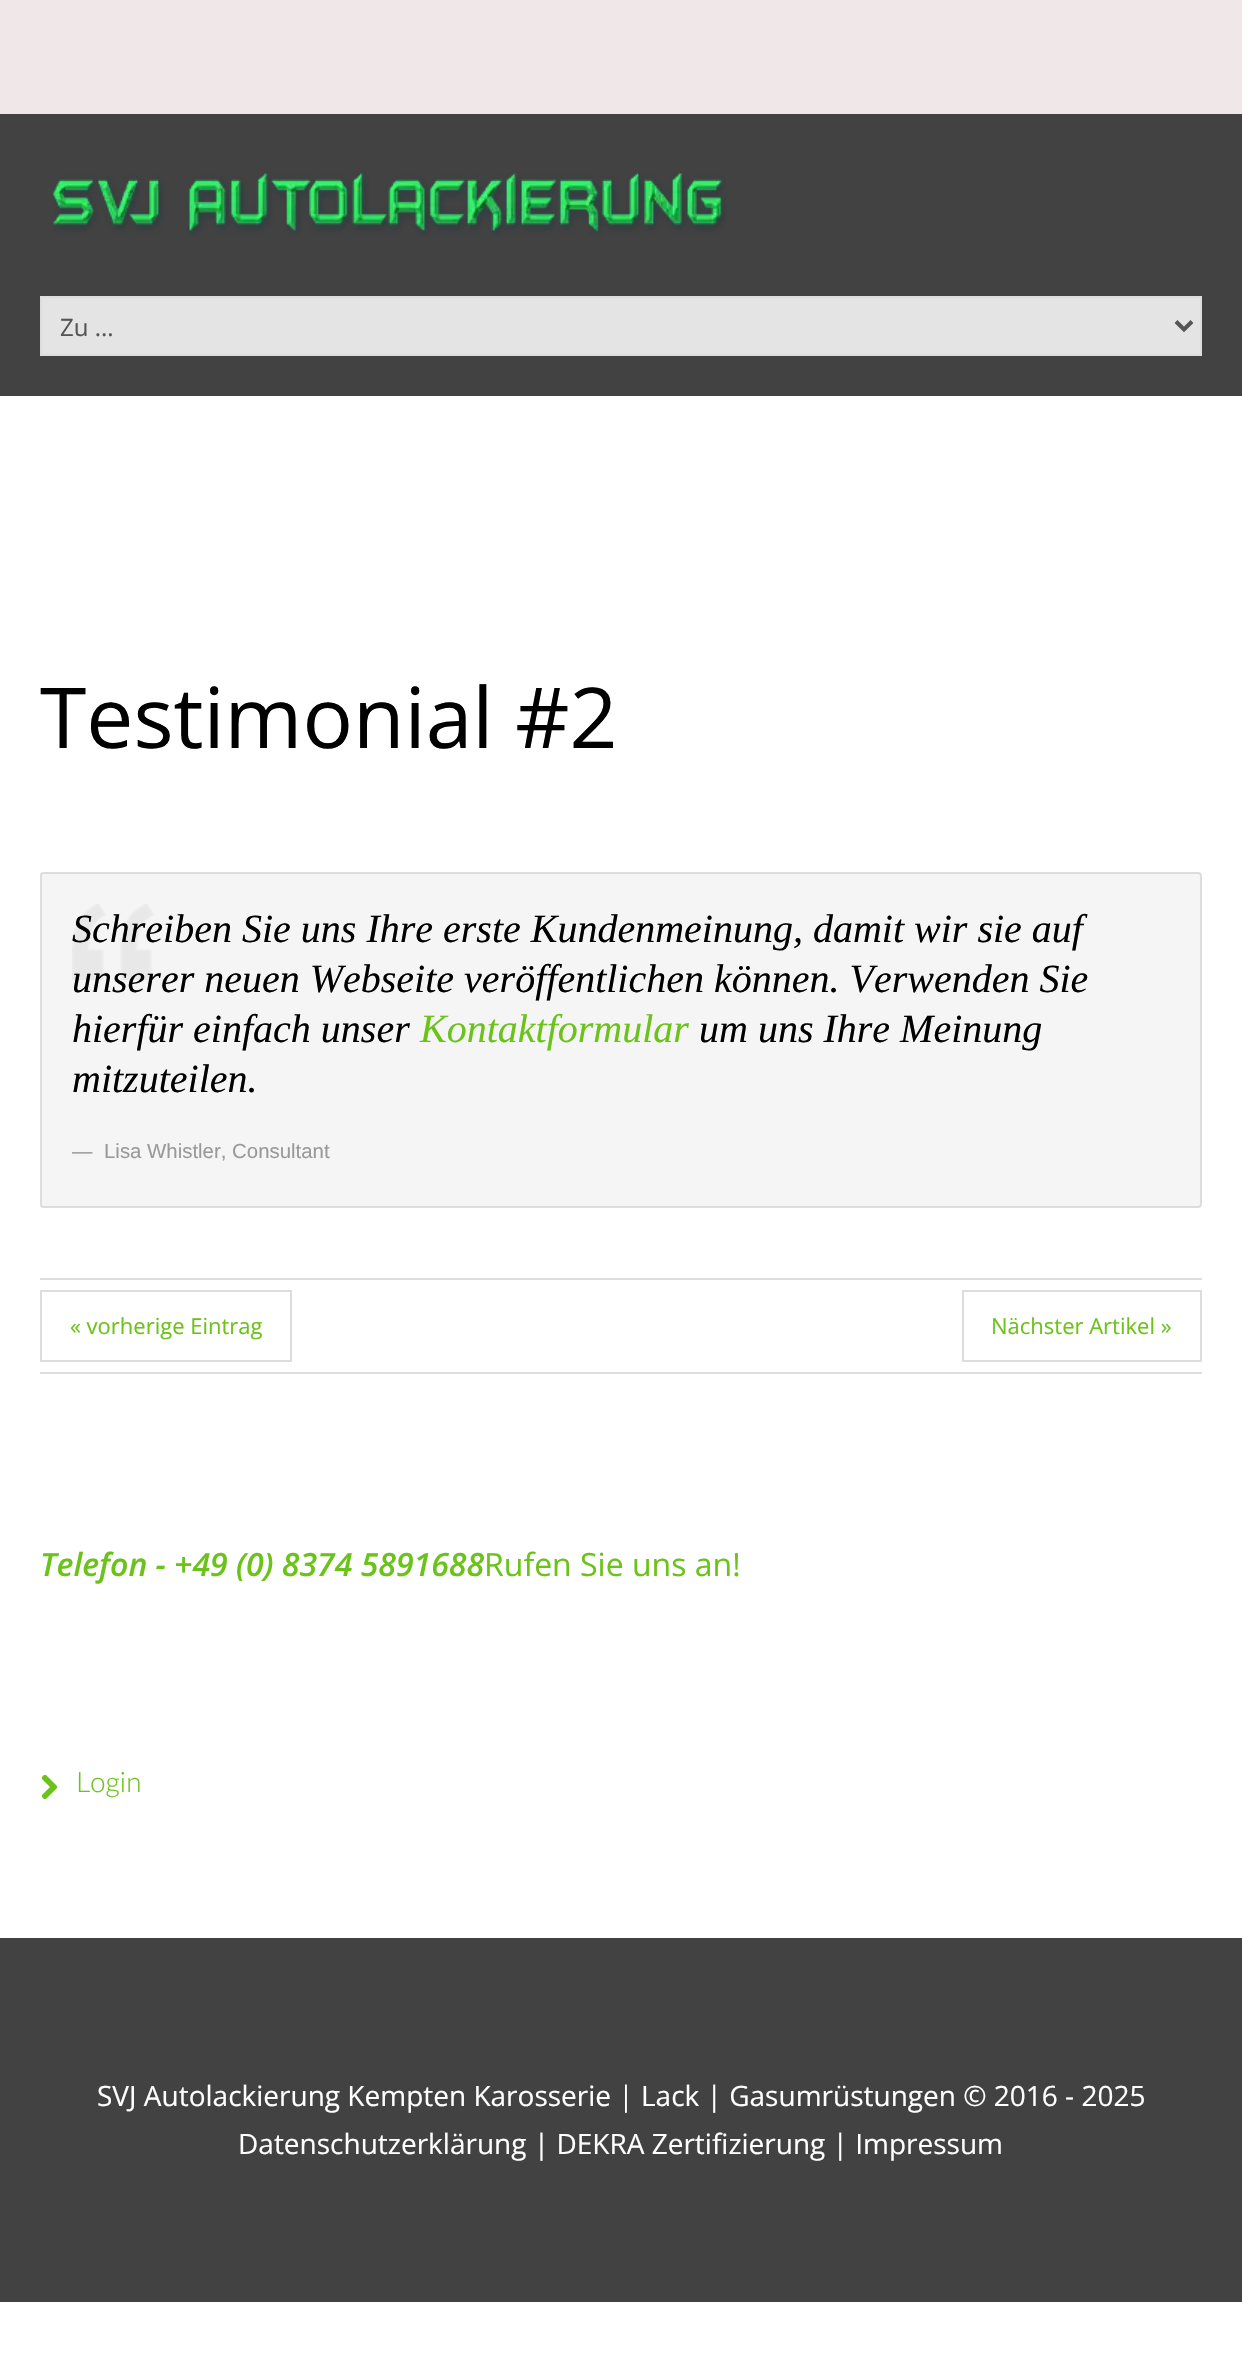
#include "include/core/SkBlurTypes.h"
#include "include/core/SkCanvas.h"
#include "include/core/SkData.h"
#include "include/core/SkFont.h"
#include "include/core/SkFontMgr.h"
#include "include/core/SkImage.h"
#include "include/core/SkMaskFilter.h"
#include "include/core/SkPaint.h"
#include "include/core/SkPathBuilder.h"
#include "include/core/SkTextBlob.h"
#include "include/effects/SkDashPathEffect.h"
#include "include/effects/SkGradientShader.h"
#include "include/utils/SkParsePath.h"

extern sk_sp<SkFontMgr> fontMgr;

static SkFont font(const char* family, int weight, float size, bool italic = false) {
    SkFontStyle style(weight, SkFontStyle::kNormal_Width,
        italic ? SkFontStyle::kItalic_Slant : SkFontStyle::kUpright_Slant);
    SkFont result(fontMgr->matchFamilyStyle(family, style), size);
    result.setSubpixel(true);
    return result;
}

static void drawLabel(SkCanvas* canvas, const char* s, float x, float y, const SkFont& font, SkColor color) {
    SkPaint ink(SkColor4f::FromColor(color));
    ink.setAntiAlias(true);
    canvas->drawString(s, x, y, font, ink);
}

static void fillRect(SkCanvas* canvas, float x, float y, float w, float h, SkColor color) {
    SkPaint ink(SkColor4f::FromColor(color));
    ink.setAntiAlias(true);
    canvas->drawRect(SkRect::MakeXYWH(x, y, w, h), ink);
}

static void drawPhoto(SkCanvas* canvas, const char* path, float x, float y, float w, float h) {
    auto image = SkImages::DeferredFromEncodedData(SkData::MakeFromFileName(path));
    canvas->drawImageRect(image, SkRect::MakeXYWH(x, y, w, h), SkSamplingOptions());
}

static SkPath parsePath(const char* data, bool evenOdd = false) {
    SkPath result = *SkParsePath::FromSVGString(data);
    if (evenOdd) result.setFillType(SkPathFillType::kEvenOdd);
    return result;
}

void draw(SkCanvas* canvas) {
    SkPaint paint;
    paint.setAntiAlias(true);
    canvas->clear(0xFFFFFFFF);
    fillRect(canvas, 0, 0, 1242, 114, 0xFFF0E8E8);
    fillRect(canvas, 0, 114, 1242, 282, 0xFF424242);
    drawPhoto(canvas, "assets/img1.png", 52, 172, 675, 65);
    paint.setColor(0xFFE4E4E4);
    canvas->drawRect(SkRect::MakeXYWH(41, 297, 1160, 58), paint);
    paint.setStroke(true);
    paint.setStrokeWidth(2);
    paint.setColor(0xFFDDDDDD);
    canvas->drawRect(SkRect::MakeXYWH(41, 297, 1160, 58), paint);
    paint.setStrokeWidth(4);
    paint.setColor(0xFF555555);
    canvas->drawPath(parsePath("M1176 321.5L1184 329.5L1192 321.5"), paint);
    SkFont font1 = font("Open Sans", 400, 24);
    drawLabel(canvas, "Zu ...", 60, 336, font1, 0xFF555555);
    SkFont font2 = font("Open Sans", 400, 84);
    drawLabel(canvas, "Testimonial #2", 40, 748, font2, 0xFF000000);
    paint.setStroke(false);
    paint.setColor(0xFFF5F5F5);
    canvas->drawRoundRect(SkRect::MakeXYWH(41, 873, 1160, 334), 3, 3, paint);
    paint.setStroke(true);
    paint.setStrokeWidth(2);
    paint.setColor(0xFFDDDDDD);
    canvas->drawRoundRect(SkRect::MakeXYWH(41, 873, 1160, 334), 3, 3, paint);
    drawPhoto(canvas, "assets/img2.png", 72, 904, 82, 76);
    SkFont font3 = font("Liberation Serif", 400, 40, true);
    drawLabel(canvas, "Schreiben Sie uns Ihre erste Kundenmeinung, damit wir sie auf", 72, 942, font3, 0xFF000000);
    drawLabel(canvas, "unserer neuen Webseite veröffentlichen können. Verwenden Sie", 72, 992, font3, 0xFF000000);
    drawLabel(canvas, "hierfür einfach unser", 72, 1042, font3, 0xFF000000);
    drawLabel(canvas, "Kontaktformular", 420, 1042, font3, 0xFF6BC219);
    drawLabel(canvas, "um uns Ihre Meinung", 699, 1042, font3, 0xFF000000);
    drawLabel(canvas, "mitzuteilen.", 72, 1092, font3, 0xFF000000);
    SkFont font4 = font("Liberation Sans", 400, 20.4f);
    drawLabel(canvas, "—", 72, 1158, font4, 0xFF999999);
    drawLabel(canvas, "Lisa Whistler, Consultant", 104, 1158, font4, 0xFF999999);
    fillRect(canvas, 40, 1278, 1162, 2, 0xFFDDDDDD);
    fillRect(canvas, 40, 1372, 1162, 2, 0xFFDDDDDD);
    canvas->drawRect(SkRect::MakeXYWH(41, 1291, 250, 70), paint);
    SkFont font5 = font("Open Sans", 400, 22);
    drawLabel(canvas, "« vorherige Eintrag", 70, 1334, font5, 0xFF6BC219);
    canvas->drawRect(SkRect::MakeXYWH(963, 1291, 238, 70), paint);
    drawLabel(canvas, "Nächster Artikel »", 991, 1334, font5, 0xFF6BC219);
    SkFont font6 = font("Open Sans", 600, 32, true);
    drawLabel(canvas, "Telefon - +49 (0) 8374 5891688", 40, 1576, font6, 0xFF6BC219);
    SkFont font7 = font("Open Sans", 400, 32);
    drawLabel(canvas, "Rufen Sie uns an!", 484, 1576, font7, 0xFF6BC219);
    drawPhoto(canvas, "assets/img3.png", 41, 1774, 17, 26);
    SkFont font8 = font("Lato", 300, 28);
    drawLabel(canvas, "Login", 76, 1792, font8, 0xFF6BC219);
    fillRect(canvas, 0, 1938, 1242, 364, 0xFF424242);
    SkFont font9 = font("Open Sans", 400, 28);
    drawLabel(canvas, "SVJ Autolackierung Kempten Karosserie | Lack | Gasumrüstungen © 2016 - 2025", 97, 2106, font9, 0xFFFFFFFF);
    drawLabel(canvas, "Datenschutzerklärung | DEKRA Zertifizierung | Impressum", 238, 2154, font9, 0xFFFFFFFF);
}
